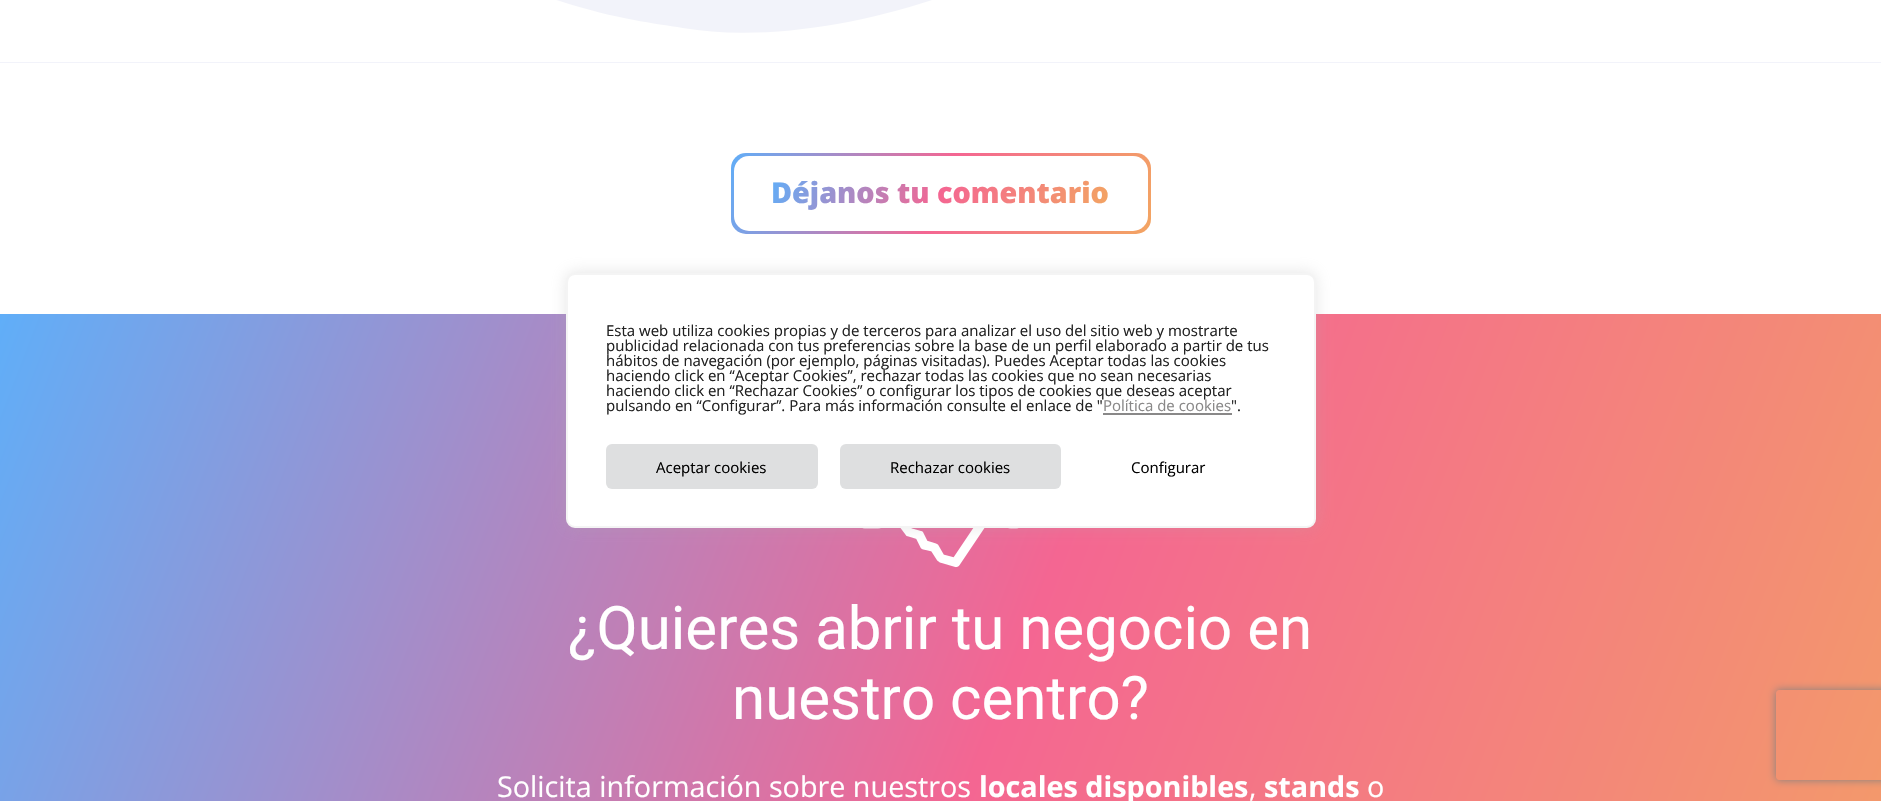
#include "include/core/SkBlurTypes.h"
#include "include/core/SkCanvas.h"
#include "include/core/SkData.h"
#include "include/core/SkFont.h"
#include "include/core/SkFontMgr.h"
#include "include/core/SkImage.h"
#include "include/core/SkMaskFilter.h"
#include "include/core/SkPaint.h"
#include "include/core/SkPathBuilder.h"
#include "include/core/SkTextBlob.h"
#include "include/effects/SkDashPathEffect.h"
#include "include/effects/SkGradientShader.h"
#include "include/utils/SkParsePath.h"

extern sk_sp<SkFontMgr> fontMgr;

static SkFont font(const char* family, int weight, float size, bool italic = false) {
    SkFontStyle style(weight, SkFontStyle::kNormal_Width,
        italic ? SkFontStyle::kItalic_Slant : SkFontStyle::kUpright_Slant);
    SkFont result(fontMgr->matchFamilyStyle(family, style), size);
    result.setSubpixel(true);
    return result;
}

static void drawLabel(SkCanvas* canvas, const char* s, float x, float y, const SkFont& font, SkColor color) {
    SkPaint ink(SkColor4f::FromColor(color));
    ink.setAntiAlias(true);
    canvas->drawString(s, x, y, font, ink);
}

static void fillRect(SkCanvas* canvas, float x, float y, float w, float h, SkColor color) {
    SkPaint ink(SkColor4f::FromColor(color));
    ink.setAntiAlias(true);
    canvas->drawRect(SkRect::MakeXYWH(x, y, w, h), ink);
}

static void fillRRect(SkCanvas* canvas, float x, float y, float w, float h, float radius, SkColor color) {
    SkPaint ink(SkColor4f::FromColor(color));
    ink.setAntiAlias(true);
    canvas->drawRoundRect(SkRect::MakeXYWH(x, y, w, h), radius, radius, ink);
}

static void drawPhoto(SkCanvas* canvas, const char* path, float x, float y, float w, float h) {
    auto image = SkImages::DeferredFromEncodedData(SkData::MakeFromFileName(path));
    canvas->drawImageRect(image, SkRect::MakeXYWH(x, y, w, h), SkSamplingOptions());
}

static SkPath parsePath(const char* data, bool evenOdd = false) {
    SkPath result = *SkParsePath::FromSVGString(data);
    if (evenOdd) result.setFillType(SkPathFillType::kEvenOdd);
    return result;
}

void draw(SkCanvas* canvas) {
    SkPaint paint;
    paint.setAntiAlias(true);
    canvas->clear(0xFFFFFFFF);
    fillRect(canvas, 0, 0, 1881, 63, 0xFFF2F3FA);
    paint.setColor(0xFFFFFFFF);
    canvas->drawPath(parsePath("M683 28C758 41 853 26 932 0C1010-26 1165-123 1263-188C1513-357 1703-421 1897-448C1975-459 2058-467 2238-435C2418-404 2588-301 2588-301V62H-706V-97C-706-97-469-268-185-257C-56-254 121-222 257-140C327-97 429-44 519-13C609 20 649 22 683 28Z"), paint);
    {
        const SkColor colors[] = {0xFF60AEF8, 0xFFF46692, 0xFFF3A562};
        const float stops[] = {0, 0.5f, 1};
        const SkPoint ends[] = {{744, 118}, {1137, 269}};
        paint.setShader(SkGradientShader::MakeLinear(ends, colors, stops, 3, SkTileMode::kClamp));
        paint.setAlpha(255);
    }
    canvas->drawRoundRect(SkRect::MakeXYWH(731, 153, 420, 81), 15, 15, paint);
    fillRRect(canvas, 734, 156, 414, 75, 15, 0xFFFFFFFF);
    SkFont font1 = font("Open Sans", 800, 28.75f);
    {
        const SkColor colors[] = {0xFF60AEF8, 0xFFF46692, 0xFFF3A562};
        const float stops[] = {0, 0.5f, 1};
        const SkPoint ends[] = {{786, 133}, {1095, 251}};
        paint.setShader(SkGradientShader::MakeLinear(ends, colors, stops, 3, SkTileMode::kClamp));
        paint.setAlpha(255);
    }
    canvas->drawString("Déjanos tu comentario", 771, 203, font1, paint);
    {
        const SkColor colors[] = {0xFF60AEF8, 0xFFF46692, 0xFFF3A562};
        const float stops[] = {0, 0.5f, 1};
        const SkPoint ends[] = {{-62, 476}, {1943, 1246}};
        paint.setShader(SkGradientShader::MakeLinear(ends, colors, stops, 3, SkTileMode::kClamp));
        paint.setAlpha(255);
    }
    canvas->drawRect(SkRect::MakeXYWH(0, 314, 1881, 487), paint);
    drawPhoto(canvas, "assets/img1.png", 862, 528, 157, 40);
    SkFont font2 = font("Roboto", 400, 60);
    drawLabel(canvas, "¿Quieres abrir tu negocio en", 568, 649, font2, 0xFFFFFFFF);
    drawLabel(canvas, "nuestro centro?", 732, 719, font2, 0xFFFFFFFF);
    SkFont font3 = font("Open Sans", 400, 28.75f);
    drawLabel(canvas, "Solicita información sobre nuestros", 497, 797, font3, 0xFFFFFFFF);
    SkFont font4 = font("Open Sans", 700, 28.75f);
    drawLabel(canvas, "locales disponibles", 979, 797, font4, 0xFFFFFFFF);
    drawLabel(canvas, ",", 1249, 797, font3, 0xFFFFFFFF);
    drawLabel(canvas, "stands", 1264, 797, font4, 0xFFFFFFFF);
    drawLabel(canvas, "o", 1367, 797, font3, 0xFFFFFFFF);
    paint.setShader(nullptr);
    paint.setColor(0x4DACABAB);
    paint.setMaskFilter(SkMaskFilter::MakeBlur(kNormal_SkBlurStyle, 7.5f));
    canvas->drawRoundRect(SkRect::MakeXYWH(566, 272, 750, 255), 9, 9, paint);
    paint.setMaskFilter(nullptr);
    paint.setColor(0xFFFFFFFF);
    canvas->drawRoundRect(SkRect::MakeXYWH(567, 274, 748, 253), 8, 8, paint);
    paint.setStroke(true);
    paint.setStrokeWidth(2);
    paint.setColor(0xFFF4F4F4);
    canvas->drawRoundRect(SkRect::MakeXYWH(567, 274, 748, 253), 8, 8, paint);
    SkFont font5 = font("Open Sans", 400, 15);
    drawLabel(canvas, "Esta web utiliza cookies propias y de terceros para analizar el uso del sitio web y mostrarte", 606, 336, font5, 0xFF212121);
    drawLabel(canvas, "publicidad relacionada con tus preferencias sobre la base de un perfil elaborado a partir de tus", 606, 351, font5, 0xFF212121);
    drawLabel(canvas, "hábitos de navegación (por ejemplo, páginas visitadas). Puedes Aceptar todas las cookies", 606, 366, font5, 0xFF212121);
    drawLabel(canvas, "haciendo click en “Aceptar Cookies”, rechazar todas las cookies que no sean necesarias", 606, 381, font5, 0xFF212121);
    drawLabel(canvas, "haciendo click en “Rechazar Cookies” o configurar los tipos de cookies que deseas aceptar", 606, 396, font5, 0xFF212121);
    drawLabel(canvas, "pulsando en “Configurar”. Para más información consulte el enlace de \"", 606, 411, font5, 0xFF212121);
    drawLabel(canvas, "Política de cookies", 1103, 411, font5, 0xFF898888);
    fillRect(canvas, 1103, 413, 129, 2, 0xFF898888);
    drawLabel(canvas, "\".", 1231, 411, font5, 0xFF212121);
    fillRRect(canvas, 606, 444, 212, 45, 6, 0xFFDEDFE0);
    drawLabel(canvas, "Aceptar cookies", 656, 473, font5, 0xFF000000);
    fillRRect(canvas, 840, 444, 221, 45, 6, 0xFFDEDFE0);
    drawLabel(canvas, "Rechazar cookies", 890, 473, font5, 0xFF000000);
    drawLabel(canvas, "Configurar", 1131, 473, font5, 0xFF000000);
    canvas->save();
    canvas->clipPath(parsePath("M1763 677H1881V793H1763ZM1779 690H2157C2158.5 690 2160 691.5 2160 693V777C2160 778.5 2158.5 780 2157 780H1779C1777.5 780 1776 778.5 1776 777V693C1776 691.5 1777.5 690 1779 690Z", true), true);
    paint.setStroke(false);
    paint.setColor(0xFF808080);
    paint.setMaskFilter(SkMaskFilter::MakeBlur(kNormal_SkBlurStyle, 4));
    canvas->drawRoundRect(SkRect::MakeXYWH(1776, 690, 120, 90), 3, 3, paint);
    paint.setMaskFilter(nullptr);
    canvas->restore();
}
